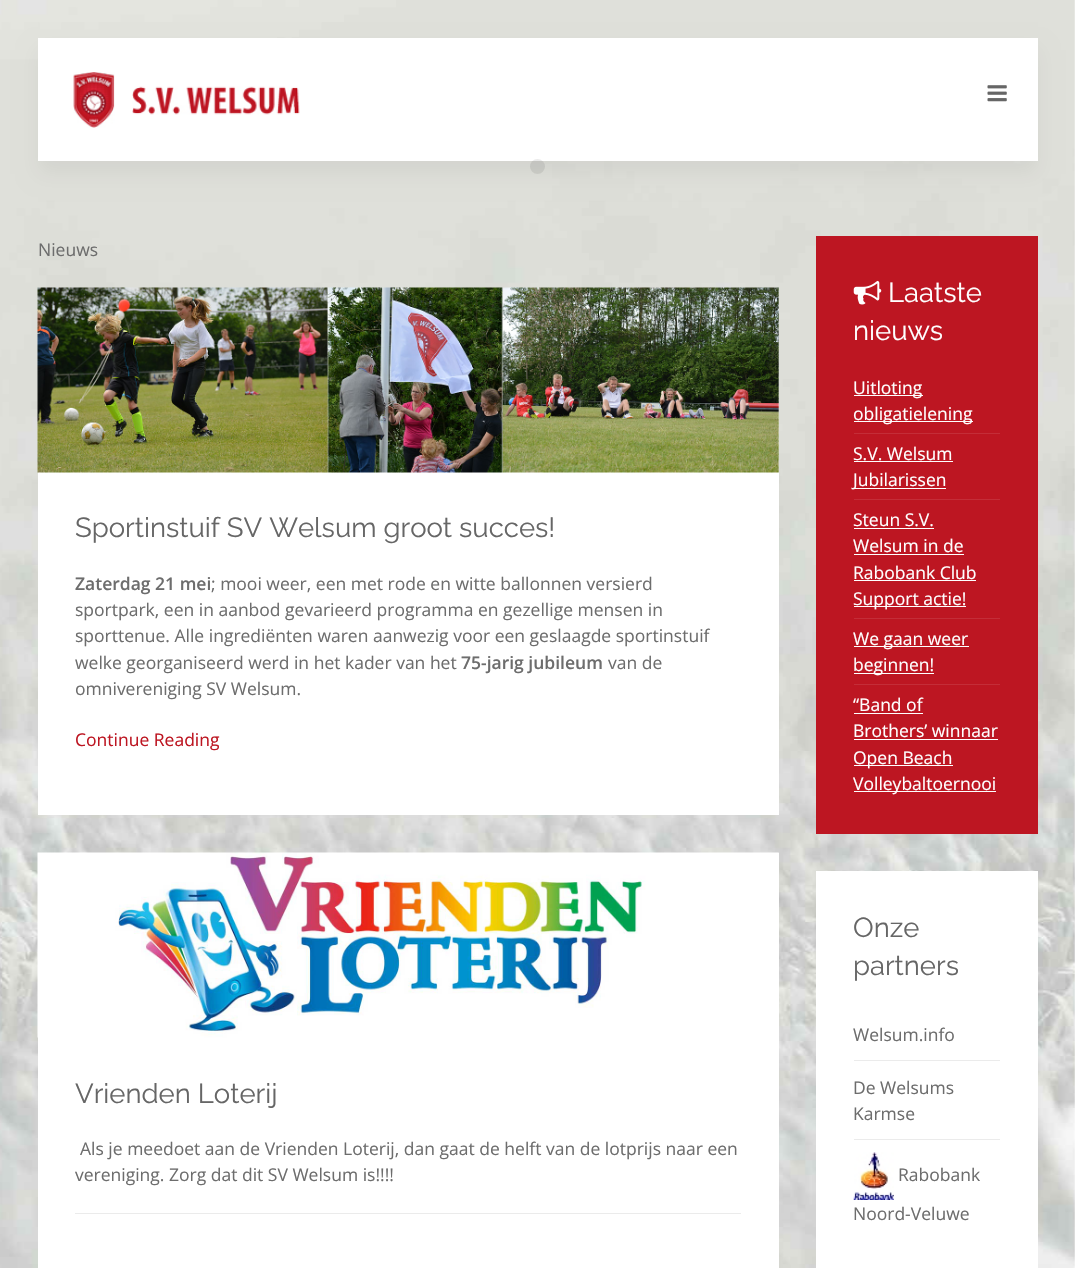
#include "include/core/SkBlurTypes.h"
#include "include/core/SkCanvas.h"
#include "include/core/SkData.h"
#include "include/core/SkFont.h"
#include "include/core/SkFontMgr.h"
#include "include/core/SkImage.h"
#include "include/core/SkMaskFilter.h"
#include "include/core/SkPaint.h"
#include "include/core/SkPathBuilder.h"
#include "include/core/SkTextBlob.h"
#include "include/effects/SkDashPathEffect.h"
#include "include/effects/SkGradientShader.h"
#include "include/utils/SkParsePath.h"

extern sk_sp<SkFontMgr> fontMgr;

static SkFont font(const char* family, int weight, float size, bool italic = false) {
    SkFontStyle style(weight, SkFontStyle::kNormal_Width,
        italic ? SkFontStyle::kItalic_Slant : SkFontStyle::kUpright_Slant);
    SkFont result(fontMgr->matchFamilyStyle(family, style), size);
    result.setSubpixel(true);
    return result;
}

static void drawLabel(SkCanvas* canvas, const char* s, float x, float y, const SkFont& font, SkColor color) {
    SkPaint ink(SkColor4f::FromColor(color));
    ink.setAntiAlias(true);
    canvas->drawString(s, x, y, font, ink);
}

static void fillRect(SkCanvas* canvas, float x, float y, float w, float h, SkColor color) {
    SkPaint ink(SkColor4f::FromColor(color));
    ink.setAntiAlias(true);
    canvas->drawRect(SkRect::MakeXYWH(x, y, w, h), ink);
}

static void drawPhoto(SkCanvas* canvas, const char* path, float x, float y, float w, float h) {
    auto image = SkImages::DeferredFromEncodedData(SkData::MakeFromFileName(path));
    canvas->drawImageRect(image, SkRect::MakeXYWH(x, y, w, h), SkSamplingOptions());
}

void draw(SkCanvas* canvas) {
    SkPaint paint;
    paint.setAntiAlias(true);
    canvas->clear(0xFFFFFFFF);
    drawPhoto(canvas, "assets/img1.png", 0, 0, 1075, 1268);
    paint.setColor(0x0D000000);
    paint.setMaskFilter(SkMaskFilter::MakeBlur(kNormal_SkBlurStyle, 9.5f));
    canvas->drawRect(SkRect::MakeXYWH(38, 50, 1000, 124), paint);
    paint.setMaskFilter(nullptr);
    fillRect(canvas, 38, 38, 1000, 123, 0xFFFFFFFF);
    drawPhoto(canvas, "assets/img2.png", 73, 72, 227, 56);
    drawPhoto(canvas, "assets/img3.png", 987, 85, 20, 17);
    paint.setColor(0x1A323232);
    canvas->drawCircle(537.5f, 166.5f, 7.5f, paint);
    SkFont font1 = font("Open Sans", 400, 17.5f);
    drawLabel(canvas, "Nieuws", 38, 256, font1, 0xFF6D6D6D);
    fillRect(canvas, 38, 288, 741, 527, 0xFFFFFFFF);
    drawPhoto(canvas, "assets/img4.png", 37, 287, 742, 186);
    SkFont font2 = font("Raleway", 400, 27.5f);
    drawLabel(canvas, "Sportinstuif SV Welsum groot succes!", 75, 537, font2, 0xFF666666);
    SkFont font3 = font("Open Sans", 600, 17.5f);
    drawLabel(canvas, "Zaterdag 21 mei", 75, 590, font3, 0xFF6D6D6D);
    drawLabel(canvas, "; mooi weer, een met rode en witte ballonnen versierd", 211, 590, font1, 0xFF6D6D6D);
    drawLabel(canvas, "sportpark, een in aanbod gevarieerd programma en gezellige mensen in", 75, 616, font1, 0xFF6D6D6D);
    drawLabel(canvas, "sporttenue. Alle ingrediënten waren aanwezig voor een geslaagde sportinstuif", 75, 642, font1, 0xFF6D6D6D);
    drawLabel(canvas, "welke georganiseerd werd in het kader van het", 75, 669, font1, 0xFF6D6D6D);
    drawLabel(canvas, "75-jarig jubileum", 461, 669, font3, 0xFF6D6D6D);
    drawLabel(canvas, "van de", 608, 669, font1, 0xFF6D6D6D);
    drawLabel(canvas, "omnivereniging SV Welsum.", 75, 695, font1, 0xFF6D6D6D);
    drawLabel(canvas, "Continue Reading", 75, 746, font1, 0xFFBD1622);
    fillRect(canvas, 38, 853, 741, 415, 0xFFFFFFFF);
    drawPhoto(canvas, "assets/img5.png", 37, 852, 742, 186);
    drawLabel(canvas, "Vrienden Loterij", 75, 1103, font2, 0xFF666666);
    drawLabel(canvas, "Als je meedoet aan de Vrienden Loterij, dan gaat de helft van de lotprijs naar een", 80, 1155, font1, 0xFF6D6D6D);
    drawLabel(canvas, "vereniging. Zorg dat dit SV Welsum is!!!!", 75, 1181, font1, 0xFF6D6D6D);
    fillRect(canvas, 75, 1213, 666, 1, 0xFFEBEBEB);
    fillRect(canvas, 816, 236, 222, 598, 0xFFBD1622);
    drawPhoto(canvas, "assets/img6.png", 853, 280, 29, 25);
    drawLabel(canvas, "Laatste", 888, 302, font2, 0xFFFFFFFF);
    drawLabel(canvas, "nieuws", 853, 340, font2, 0xFFFFFFFF);
    fillRect(canvas, 854, 395, 69, 1, 0xFFFFFFFF);
    drawLabel(canvas, "Uitloting", 853, 394, font1, 0xFFFFFFFF);
    fillRect(canvas, 854, 421, 119, 1, 0xFFFFFFFF);
    drawLabel(canvas, "obligatielening", 853, 420, font1, 0xFFFFFFFF);
    fillRect(canvas, 854, 433, 146, 1, 0xFFC42D38);
    drawLabel(canvas, "S.V. Welsum", 853, 460, font1, 0xFFFFFFFF);
    fillRect(canvas, 854, 461, 99, 1, 0xFFFFFFFF);
    fillRect(canvas, 854, 488, 92, 1, 0xFFFFFFFF);
    drawLabel(canvas, "Jubilarissen", 853, 486, font1, 0xFFFFFFFF);
    fillRect(canvas, 854, 499, 146, 1, 0xFFC42D38);
    drawLabel(canvas, "Steun S.V.", 853, 526, font1, 0xFFFFFFFF);
    fillRect(canvas, 854, 528, 80, 1, 0xFFFFFFFF);
    drawLabel(canvas, "Welsum in de", 853, 552, font1, 0xFFFFFFFF);
    fillRect(canvas, 854, 554, 110, 1, 0xFFFFFFFF);
    drawLabel(canvas, "Rabobank Club", 853, 579, font1, 0xFFFFFFFF);
    fillRect(canvas, 854, 580, 122, 1, 0xFFFFFFFF);
    fillRect(canvas, 854, 606, 112, 1, 0xFFFFFFFF);
    drawLabel(canvas, "Support actie!", 853, 605, font1, 0xFFFFFFFF);
    fillRect(canvas, 854, 618, 146, 1, 0xFFC42D38);
    fillRect(canvas, 854, 646, 115, 1, 0xFFFFFFFF);
    drawLabel(canvas, "We gaan weer", 853, 645, font1, 0xFFFFFFFF);
    fillRect(canvas, 854, 673, 80, 1, 0xFFFFFFFF);
    drawLabel(canvas, "beginnen!", 853, 671, font1, 0xFFFFFFFF);
    fillRect(canvas, 854, 684, 146, 1, 0xFFC42D38);
    drawLabel(canvas, "“Band of", 853, 711, font1, 0xFFFFFFFF);
    fillRect(canvas, 854, 713, 69, 1, 0xFFFFFFFF);
    drawLabel(canvas, "Brothers’ winnaar", 853, 737, font1, 0xFFFFFFFF);
    fillRect(canvas, 854, 739, 144, 1, 0xFFFFFFFF);
    fillRect(canvas, 854, 765, 99, 1, 0xFFFFFFFF);
    drawLabel(canvas, "Open Beach", 853, 764, font1, 0xFFFFFFFF);
    fillRect(canvas, 854, 791, 142, 1, 0xFFFFFFFF);
    drawLabel(canvas, "Volleybaltoernooi", 853, 790, font1, 0xFFFFFFFF);
    fillRect(canvas, 816, 871, 222, 397, 0xFFFFFFFF);
    drawLabel(canvas, "Onze", 853, 937, font2, 0xFF666666);
    drawLabel(canvas, "partners", 853, 975, font2, 0xFF666666);
    drawLabel(canvas, "Welsum.info", 853, 1041, font1, 0xFF6D6D6D);
    fillRect(canvas, 854, 1060, 146, 1, 0xFFEBEBEB);
    drawLabel(canvas, "De Welsums", 853, 1094, font1, 0xFF6D6D6D);
    drawLabel(canvas, "Karmse", 853, 1120, font1, 0xFF6D6D6D);
    fillRect(canvas, 854, 1139, 146, 1, 0xFFEBEBEB);
    drawPhoto(canvas, "assets/img7.png", 853, 1152, 41, 48);
    drawLabel(canvas, "Rabobank", 898, 1181, font1, 0xFF6D6D6D);
    drawLabel(canvas, "Noord-Veluwe", 853, 1220, font1, 0xFF6D6D6D);
}
